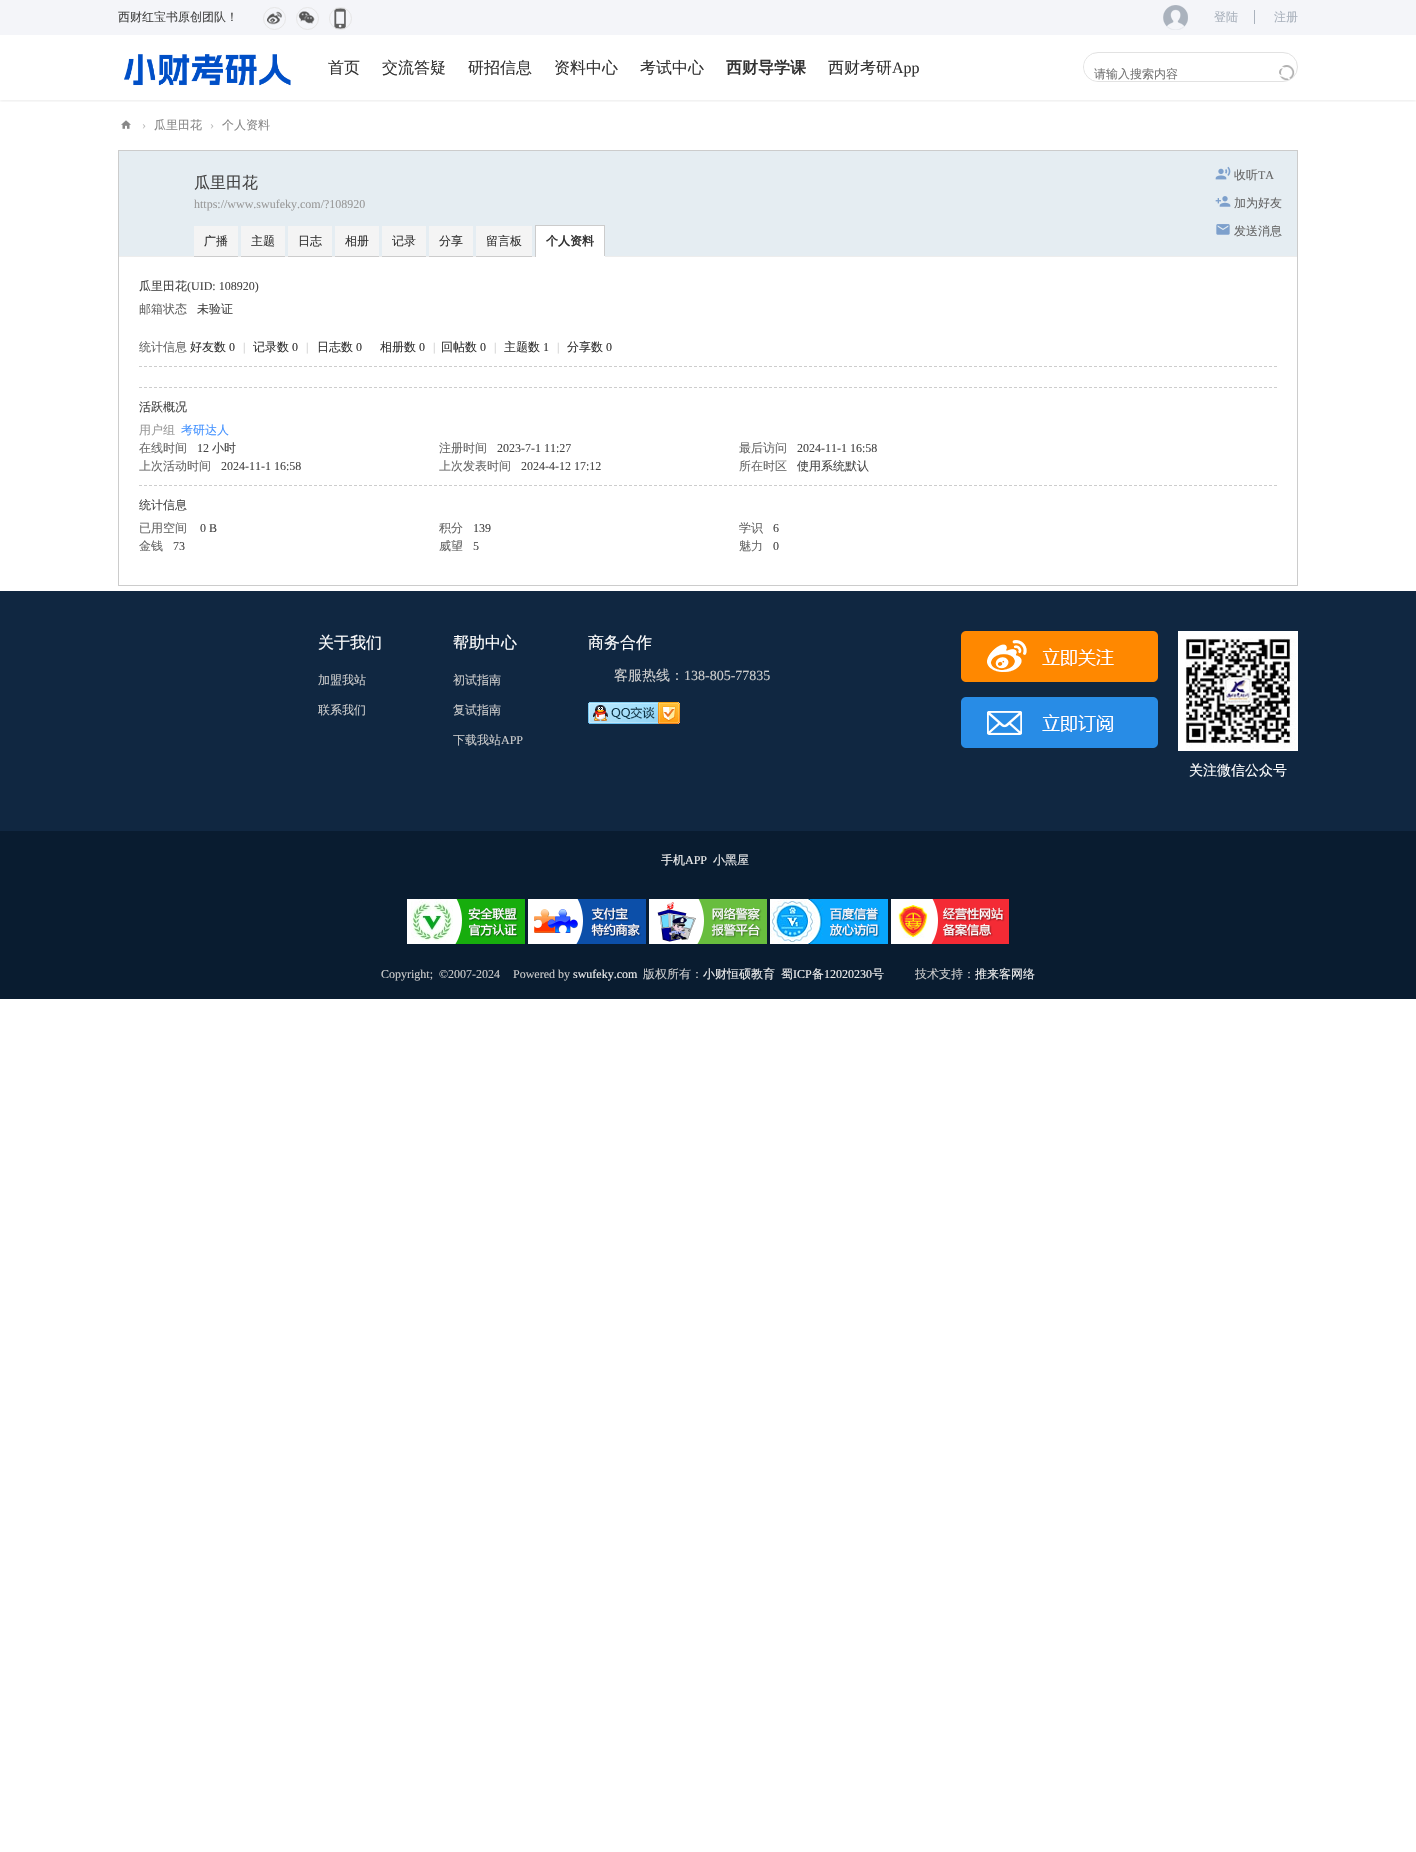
#include "include/core/SkBlurTypes.h"
#include "include/core/SkCanvas.h"
#include "include/core/SkData.h"
#include "include/core/SkFont.h"
#include "include/core/SkFontMgr.h"
#include "include/core/SkImage.h"
#include "include/core/SkMaskFilter.h"
#include "include/core/SkPaint.h"
#include "include/core/SkPathBuilder.h"
#include "include/core/SkTextBlob.h"
#include "include/effects/SkDashPathEffect.h"
#include "include/effects/SkGradientShader.h"
#include "include/utils/SkParsePath.h"

extern sk_sp<SkFontMgr> fontMgr;

static SkFont font(const char* family, int weight, float size, bool italic = false) {
    SkFontStyle style(weight, SkFontStyle::kNormal_Width,
        italic ? SkFontStyle::kItalic_Slant : SkFontStyle::kUpright_Slant);
    SkFont result(fontMgr->matchFamilyStyle(family, style), size);
    result.setSubpixel(true);
    return result;
}

static void drawLabel(SkCanvas* canvas, const char* s, float x, float y, const SkFont& font, SkColor color) {
    SkPaint ink(SkColor4f::FromColor(color));
    ink.setAntiAlias(true);
    canvas->drawString(s, x, y, font, ink);
}

static void fillRect(SkCanvas* canvas, float x, float y, float w, float h, SkColor color) {
    SkPaint ink(SkColor4f::FromColor(color));
    ink.setAntiAlias(true);
    canvas->drawRect(SkRect::MakeXYWH(x, y, w, h), ink);
}

static void drawPhoto(SkCanvas* canvas, const char* path, float x, float y, float w, float h) {
    auto image = SkImages::DeferredFromEncodedData(SkData::MakeFromFileName(path));
    canvas->drawImageRect(image, SkRect::MakeXYWH(x, y, w, h), SkSamplingOptions());
}

static SkPath parsePath(const char* data, bool evenOdd = false) {
    SkPath result = *SkParsePath::FromSVGString(data);
    if (evenOdd) result.setFillType(SkPathFillType::kEvenOdd);
    return result;
}

void draw(SkCanvas* canvas) {
    SkPaint paint;
    paint.setAntiAlias(true);
    canvas->clear(0xFFFFFFFF);
    fillRect(canvas, 0, 0, 1416, 35, 0xFFF4F5F9);
    SkFont font1 = font("WenQuanYi Zen Hei", 500, 12);
    drawLabel(canvas, "西财红宝书原创团队！", 118, 21, font1, 0xFF444444);
    drawPhoto(canvas, "assets/img1.png", 267, 11, 15, 14);
    paint.setStroke(true);
    paint.setStrokeWidth(1);
    paint.setColor(0xFFE6E6E6);
    canvas->drawCircle(274.5f, 18.5f, 11, paint);
    drawPhoto(canvas, "assets/img2.png", 298, 11, 17, 13);
    canvas->drawCircle(307.5f, 18.5f, 11, paint);
    drawPhoto(canvas, "assets/img3.png", 334, 8, 12, 21);
    canvas->drawCircle(340.5f, 18.5f, 11, paint);
    drawPhoto(canvas, "assets/img4.png", 1163, 5, 25, 25);
    drawLabel(canvas, "登陆", 1214, 21, font1, 0xFFAAB2BD);
    fillRect(canvas, 1254, 10, 1, 14, 0xFFAAB2BD);
    drawLabel(canvas, "注册", 1274, 21, font1, 0xFFAAB2BD);
    canvas->save();
    canvas->clipRect(SkRect::MakeXYWH(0, 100, 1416, 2));
    paint.setStroke(false);
    paint.setColor(0x14000000);
    paint.setMaskFilter(SkMaskFilter::MakeBlur(kNormal_SkBlurStyle, 1.5f));
    canvas->drawRect(SkRect::MakeXYWH(0, 36, 1416, 65), paint);
    paint.setMaskFilter(nullptr);
    canvas->restore();
    drawPhoto(canvas, "assets/img5.png", 124, 54, 167, 32);
    SkFont font2 = font("WenQuanYi Zen Hei", 500, 16);
    drawLabel(canvas, "首页", 328, 73, font2, 0xFF333333);
    drawLabel(canvas, "交流答疑", 382, 73, font2, 0xFF333333);
    drawLabel(canvas, "研招信息", 468, 73, font2, 0xFF333333);
    drawLabel(canvas, "资料中心", 554, 73, font2, 0xFF333333);
    drawLabel(canvas, "考试中心", 640, 73, font2, 0xFF333333);
    SkFont font3 = font("WenQuanYi Zen Hei", 700, 16);
    drawLabel(canvas, "西财导学课", 726, 73, font3, 0xFF333333);
    drawLabel(canvas, "西财考研", 828, 73, font2, 0xFF333333);
    SkFont font4 = font("Liberation Serif", 400, 16);
    drawLabel(canvas, "App", 892, 73, font4, 0xFF333333);
    paint.setStroke(true);
    paint.setColor(0xFFE2E2E2);
    canvas->drawRoundRect(SkRect::MakeXYWH(1083.5f, 52.5f, 214, 29), 14.5f, 14.5f, paint);
    canvas->save();
    canvas->clipPath(parsePath("M1098 53H1283C1290.5 53 1297 59.5 1297 67C1297 74.5 1290.5 81 1283 81H1098C1090.5 81 1084 74.5 1084 67C1084 59.5 1090.5 53 1098 53Z"), true);
    paint.setStroke(false);
    paint.setColor(0xFFFFFFFF);
    canvas->drawPath(parsePath("M1084 55H1263V81H1098C1090.5 81 1084 74.5 1084 67Z"), paint);
    canvas->restore();
    drawLabel(canvas, "请输入搜索内容", 1094, 78, font1, 0xFF757575);
    drawPhoto(canvas, "assets/img6.png", 1279, 65, 16, 16);
    drawPhoto(canvas, "assets/img7.png", 1279, 67, 12, 13);
    drawPhoto(canvas, "assets/img8.png", 121, 120, 10, 9);
    SkFont font5 = font("Liberation Serif", 400, 12);
    drawLabel(canvas, "›", 142, 129, font5, 0xFFBDBDBD);
    drawLabel(canvas, "瓜里田花", 154, 129, font1, 0xFF888888);
    drawLabel(canvas, "›", 210, 129, font5, 0xFFBDBDBD);
    drawLabel(canvas, "个人资料", 222, 129, font1, 0xFF888888);
    fillRect(canvas, 119, 151, 1178, 105, 0xFFE5EDF2);
    fillRect(canvas, 118, 150, 1180, 1, 0xFFCCCCCC);
    fillRect(canvas, 1297, 150, 1, 436, 0xFFCCCCCC);
    fillRect(canvas, 118, 150, 1, 107, 0xFFCCCCCC);
    drawLabel(canvas, "瓜里田花", 194, 188, font2, 0xFF444444);
    drawLabel(canvas, "https://www.swufeky.com/?108920", 194, 208, font5, 0xFF999999);
    drawPhoto(canvas, "assets/img9.png", 1215, 166, 16, 14);
    drawLabel(canvas, "收听", 1234, 179, font1, 0xFF666666);
    drawLabel(canvas, "TA", 1258, 179, font5, 0xFF666666);
    drawPhoto(canvas, "assets/img10.png", 1215, 196, 16, 11);
    drawLabel(canvas, "加为好友", 1234, 207, font1, 0xFF666666);
    drawPhoto(canvas, "assets/img11.png", 1216, 224, 14, 11);
    drawLabel(canvas, "发送消息", 1234, 235, font1, 0xFF666666);
    fillRect(canvas, 119, 256, 1178, 1, 0xFFEDEDED);
    fillRect(canvas, 194, 226, 44, 30, 0xFFF4F4F4);
    fillRect(canvas, 194, 256, 44, 1, 0xFFCCCCCC);
    drawLabel(canvas, "广播", 204, 245, font1, 0xFF333333);
    fillRect(canvas, 241, 226, 44, 30, 0xFFF4F4F4);
    fillRect(canvas, 241, 256, 44, 1, 0xFFCCCCCC);
    drawLabel(canvas, "主题", 251, 245, font1, 0xFF333333);
    fillRect(canvas, 288, 226, 44, 30, 0xFFF4F4F4);
    fillRect(canvas, 288, 256, 44, 1, 0xFFCCCCCC);
    drawLabel(canvas, "日志", 298, 245, font1, 0xFF333333);
    fillRect(canvas, 335, 226, 44, 30, 0xFFF4F4F4);
    fillRect(canvas, 335, 256, 44, 1, 0xFFCCCCCC);
    drawLabel(canvas, "相册", 345, 245, font1, 0xFF333333);
    fillRect(canvas, 382, 226, 44, 30, 0xFFF4F4F4);
    fillRect(canvas, 382, 256, 44, 1, 0xFFCCCCCC);
    drawLabel(canvas, "记录", 392, 245, font1, 0xFF333333);
    fillRect(canvas, 429, 226, 44, 30, 0xFFF4F4F4);
    fillRect(canvas, 429, 256, 44, 1, 0xFFCCCCCC);
    drawLabel(canvas, "分享", 439, 245, font1, 0xFF333333);
    fillRect(canvas, 476, 226, 56, 30, 0xFFF4F4F4);
    fillRect(canvas, 476, 256, 56, 1, 0xFFCCCCCC);
    drawLabel(canvas, "留言板", 486, 245, font1, 0xFF333333);
    fillRect(canvas, 536, 226, 68, 30, 0xFFFFFFFF);
    fillRect(canvas, 535, 225, 70, 1, 0xFFCCCCCC);
    fillRect(canvas, 604, 225, 1, 32, 0xFFCCCCCC);
    fillRect(canvas, 535, 256, 70, 1, 0xFFFFFFFF);
    fillRect(canvas, 535, 225, 1, 32, 0xFFCCCCCC);
    SkFont font6 = font("WenQuanYi Zen Hei", 700, 12);
    drawLabel(canvas, "个人资料", 546, 245, font6, 0xFF333333);
    fillRect(canvas, 118, 585, 1180, 1, 0xFFCCCCCC);
    fillRect(canvas, 118, 257, 1, 329, 0xFFCCCCCC);
    paint.setStroke(true);
    paint.setColor(0xFFCDCDCD);
    paint.setPathEffect(SkDashPathEffect::Make({{3, 2}}, 0));
    canvas->drawPath(parsePath("M139 387.5H1277"), paint);
    paint.setPathEffect(nullptr);
    drawLabel(canvas, "瓜里田花", 139, 290, font1, 0xFF444444);
    drawLabel(canvas, "(UID: 108920)", 187, 290, font5, 0xFF444444);
    drawLabel(canvas, "邮箱状态", 139, 313, font1, 0xFF666666);
    drawLabel(canvas, "未验证", 197, 313, font1, 0xFF444444);
    paint.setPathEffect(SkDashPathEffect::Make({{3, 2}}, 0));
    canvas->drawPath(parsePath("M139 366.5H1277"), paint);
    paint.setPathEffect(nullptr);
    drawLabel(canvas, "统计信息", 139, 351, font1, 0xFF666666);
    drawLabel(canvas, "好友数", 190, 351, font1, 0xFF333333);
    drawLabel(canvas, "0", 229, 351, font5, 0xFF333333);
    drawLabel(canvas, "|", 243, 351, font5, 0xFFCCCCCC);
    drawLabel(canvas, "记录数", 253, 351, font1, 0xFF333333);
    drawLabel(canvas, "0", 292, 351, font5, 0xFF333333);
    drawLabel(canvas, "|", 306, 351, font5, 0xFFCCCCCC);
    drawLabel(canvas, "日志数", 317, 351, font1, 0xFF333333);
    drawLabel(canvas, "0", 356, 351, font5, 0xFF333333);
    drawLabel(canvas, "相册数", 380, 351, font1, 0xFF333333);
    drawLabel(canvas, "0", 419, 351, font5, 0xFF333333);
    drawLabel(canvas, "|", 433, 351, font5, 0xFFCCCCCC);
    drawLabel(canvas, "回帖数", 441, 351, font1, 0xFF333333);
    drawLabel(canvas, "0", 480, 351, font5, 0xFF333333);
    drawLabel(canvas, "|", 494, 351, font5, 0xFFCCCCCC);
    drawLabel(canvas, "主题数", 504, 351, font1, 0xFF333333);
    drawLabel(canvas, "1", 543, 351, font5, 0xFF333333);
    drawLabel(canvas, "|", 557, 351, font5, 0xFFCCCCCC);
    drawLabel(canvas, "分享数", 567, 351, font1, 0xFF333333);
    drawLabel(canvas, "0", 606, 351, font5, 0xFF333333);
    paint.setPathEffect(SkDashPathEffect::Make({{3, 2}}, 0));
    canvas->drawPath(parsePath("M139 485.5H1277"), paint);
    paint.setPathEffect(nullptr);
    drawLabel(canvas, "活跃概况", 139, 411, font1, 0xFF444444);
    drawLabel(canvas, "用户组", 139, 434, font1, 0xFF999999);
    drawLabel(canvas, "考研达人", 181, 434, font1, 0xFF4593FF);
    drawLabel(canvas, "在线时间", 139, 452, font1, 0xFF666666);
    drawLabel(canvas, "12", 197, 452, font5, 0xFF444444);
    drawLabel(canvas, "小时", 212, 452, font1, 0xFF444444);
    drawLabel(canvas, "注册时间", 439, 452, font1, 0xFF666666);
    drawLabel(canvas, "2023-7-1 11:27", 497, 452, font5, 0xFF444444);
    drawLabel(canvas, "最后访问", 739, 452, font1, 0xFF666666);
    drawLabel(canvas, "2024-11-1 16:58", 797, 452, font5, 0xFF444444);
    drawLabel(canvas, "上次活动时间", 139, 470, font1, 0xFF666666);
    drawLabel(canvas, "2024-11-1 16:58", 221, 470, font5, 0xFF444444);
    drawLabel(canvas, "上次发表时间", 439, 470, font1, 0xFF666666);
    drawLabel(canvas, "2024-4-12 17:12", 521, 470, font5, 0xFF444444);
    drawLabel(canvas, "所在时区", 739, 470, font1, 0xFF666666);
    drawLabel(canvas, "使用系统默认", 797, 470, font1, 0xFF444444);
    drawLabel(canvas, "统计信息", 139, 509, font1, 0xFF444444);
    drawLabel(canvas, "已用空间", 139, 532, font1, 0xFF666666);
    drawLabel(canvas, "0 B", 200, 532, font5, 0xFF444444);
    drawLabel(canvas, "积分", 439, 532, font1, 0xFF666666);
    drawLabel(canvas, "139", 473, 532, font5, 0xFF444444);
    drawLabel(canvas, "学识", 739, 532, font1, 0xFF666666);
    drawLabel(canvas, "6", 773, 532, font5, 0xFF444444);
    drawLabel(canvas, "金钱", 139, 550, font1, 0xFF666666);
    drawLabel(canvas, "73", 173, 550, font5, 0xFF444444);
    drawLabel(canvas, "威望", 439, 550, font1, 0xFF666666);
    drawLabel(canvas, "5", 473, 550, font5, 0xFF444444);
    drawLabel(canvas, "魅力", 739, 550, font1, 0xFF666666);
    drawLabel(canvas, "0", 773, 550, font5, 0xFF444444);
    fillRect(canvas, 0, 591, 1416, 240, 0xFF102741);
    drawLabel(canvas, "关于我们", 318, 648, font2, 0xFFFFFFFF);
    drawLabel(canvas, "加盟我站", 318, 684, font1, 0xFFCCCCCC);
    drawLabel(canvas, "联系我们", 318, 714, font1, 0xFFCCCCCC);
    drawLabel(canvas, "帮助中心", 453, 648, font2, 0xFFFFFFFF);
    drawLabel(canvas, "初试指南", 453, 684, font1, 0xFFCCCCCC);
    drawLabel(canvas, "复试指南", 453, 714, font1, 0xFFCCCCCC);
    drawLabel(canvas, "下载我站", 453, 744, font1, 0xFFCCCCCC);
    drawLabel(canvas, "APP", 501, 744, font5, 0xFFCCCCCC);
    drawLabel(canvas, "商务合作", 588, 648, font2, 0xFFFFFFFF);
    SkFont font7 = font("WenQuanYi Zen Hei", 500, 14);
    drawLabel(canvas, "客服热线：", 614, 680, font7, 0xFFCCCCCC);
    SkFont font8 = font("Liberation Serif", 400, 14);
    drawLabel(canvas, "138-805-77835", 684, 680, font8, 0xFFCCCCCC);
    drawPhoto(canvas, "assets/img12.png", 588, 702, 92, 22);
    drawPhoto(canvas, "assets/img13.png", 961, 631, 197, 51);
    drawPhoto(canvas, "assets/img14.png", 961, 697, 197, 51);
    drawPhoto(canvas, "assets/img15.png", 1178, 631, 120, 120);
    drawLabel(canvas, "关注微信公众号", 1189, 775, font7, 0xFFFFFFFF);
    fillRect(canvas, 0, 831, 1416, 168, 0xFF091C30);
    drawLabel(canvas, "手机", 661, 864, font1, 0xFFEEEEEE);
    drawLabel(canvas, "APP", 685, 864, font5, 0xFFEEEEEE);
    drawLabel(canvas, "小黑屋", 713, 864, font1, 0xFFEEEEEE);
    drawPhoto(canvas, "assets/img16.png", 407, 899, 118, 45);
    drawPhoto(canvas, "assets/img17.png", 528, 899, 118, 45);
    drawPhoto(canvas, "assets/img18.png", 649, 899, 118, 45);
    drawPhoto(canvas, "assets/img19.png", 770, 899, 118, 45);
    drawPhoto(canvas, "assets/img20.png", 891, 899, 118, 45);
    drawLabel(canvas, "Copyright;  ©2007-2024", 381, 978, font5, 0xFFCCCCCC);
    drawLabel(canvas, "Powered by", 513, 978, font5, 0xFFCCCCCC);
    drawLabel(canvas, "swufeky.com", 573, 978, font5, 0xFFEEEEEE);
    drawLabel(canvas, "版权所有：", 643, 978, font1, 0xFFCCCCCC);
    drawLabel(canvas, "小财恒硕教育", 703, 978, font1, 0xFFEEEEEE);
    drawLabel(canvas, "蜀", 781, 978, font1, 0xFFEEEEEE);
    drawLabel(canvas, "ICP", 793, 978, font5, 0xFFEEEEEE);
    drawLabel(canvas, "备", 812, 978, font1, 0xFFEEEEEE);
    drawLabel(canvas, "12020230", 824, 978, font5, 0xFFEEEEEE);
    drawLabel(canvas, "号", 872, 978, font1, 0xFFEEEEEE);
    drawLabel(canvas, "技术支持：", 915, 978, font1, 0xFFCCCCCC);
    drawLabel(canvas, "推来客网络", 975, 978, font1, 0xFFEEEEEE);
}
